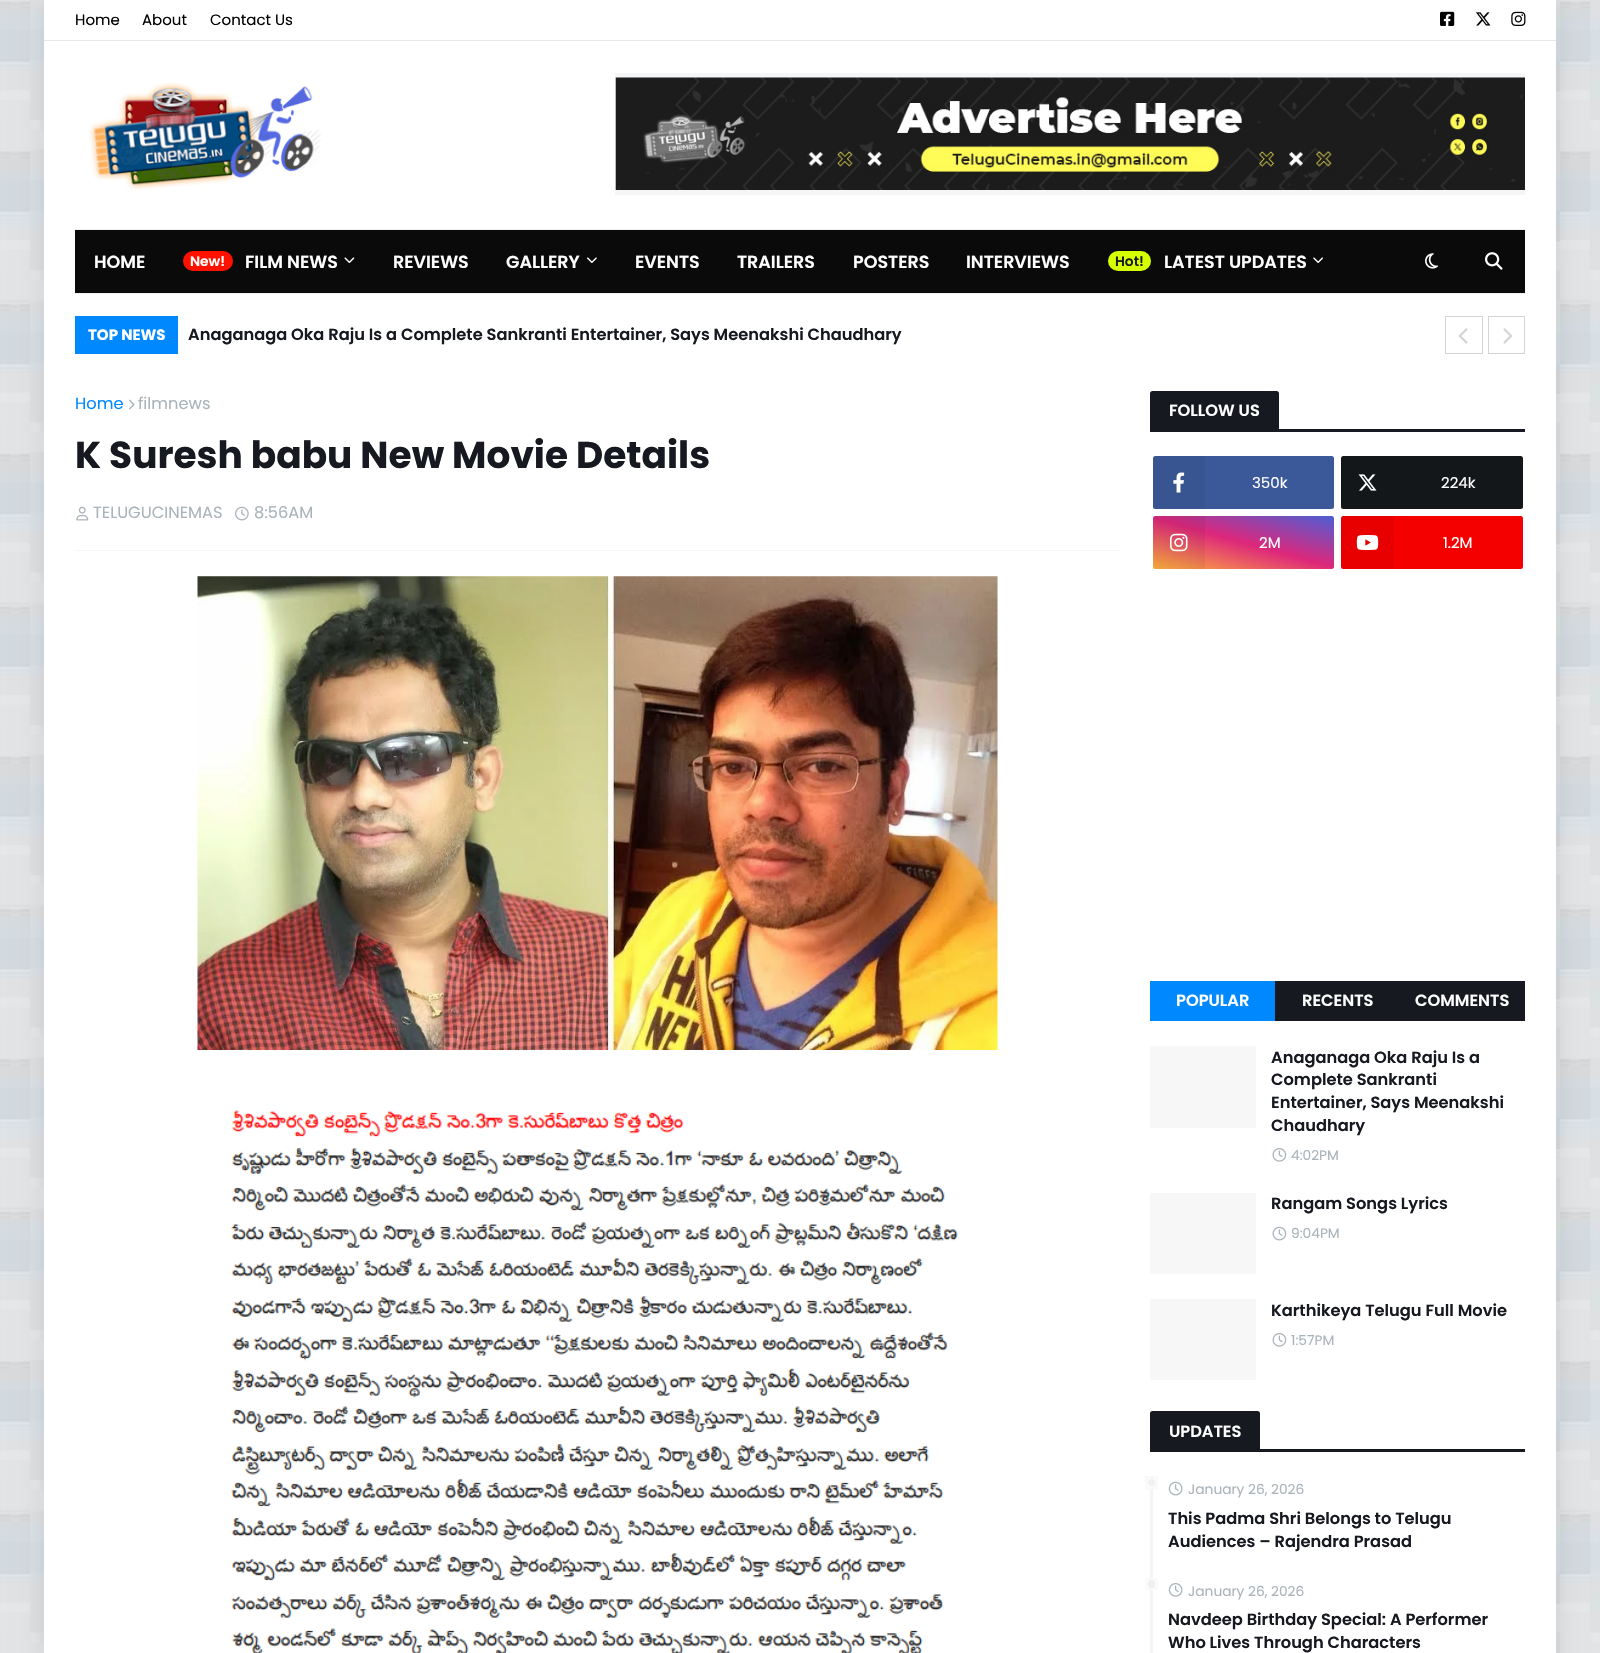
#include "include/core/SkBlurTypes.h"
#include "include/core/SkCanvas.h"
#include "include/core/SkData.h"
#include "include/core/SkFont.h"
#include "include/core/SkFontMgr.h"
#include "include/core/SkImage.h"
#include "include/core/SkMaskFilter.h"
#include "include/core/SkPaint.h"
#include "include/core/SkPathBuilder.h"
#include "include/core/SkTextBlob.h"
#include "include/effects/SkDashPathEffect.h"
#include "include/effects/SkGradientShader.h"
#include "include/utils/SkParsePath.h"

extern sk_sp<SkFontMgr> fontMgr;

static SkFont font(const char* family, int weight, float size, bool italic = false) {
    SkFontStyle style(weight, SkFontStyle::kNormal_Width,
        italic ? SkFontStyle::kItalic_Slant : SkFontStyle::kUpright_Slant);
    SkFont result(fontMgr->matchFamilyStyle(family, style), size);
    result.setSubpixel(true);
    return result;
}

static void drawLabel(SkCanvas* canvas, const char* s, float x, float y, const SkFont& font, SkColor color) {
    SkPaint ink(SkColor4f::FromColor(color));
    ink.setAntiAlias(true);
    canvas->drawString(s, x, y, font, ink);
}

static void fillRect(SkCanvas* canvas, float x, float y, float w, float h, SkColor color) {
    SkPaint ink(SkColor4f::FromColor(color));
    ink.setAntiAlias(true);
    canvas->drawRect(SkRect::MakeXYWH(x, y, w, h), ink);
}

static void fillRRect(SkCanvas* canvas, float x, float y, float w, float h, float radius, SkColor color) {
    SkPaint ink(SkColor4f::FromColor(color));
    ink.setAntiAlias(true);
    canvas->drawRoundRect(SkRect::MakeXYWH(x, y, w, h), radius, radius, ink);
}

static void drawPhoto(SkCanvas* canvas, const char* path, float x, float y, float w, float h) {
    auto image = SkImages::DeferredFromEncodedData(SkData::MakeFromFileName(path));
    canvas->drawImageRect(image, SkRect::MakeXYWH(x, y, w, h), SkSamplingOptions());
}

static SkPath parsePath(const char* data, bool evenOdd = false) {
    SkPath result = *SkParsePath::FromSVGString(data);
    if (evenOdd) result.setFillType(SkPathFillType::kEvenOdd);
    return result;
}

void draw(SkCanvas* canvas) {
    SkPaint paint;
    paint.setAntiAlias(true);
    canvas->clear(0xFFFFFFFF);
    drawPhoto(canvas, "assets/img1.png", 0, 0, 1600, 1653);
    paint.setColor(0x1A000000);
    paint.setMaskFilter(SkMaskFilter::MakeBlur(kNormal_SkBlurStyle, 12.5f));
    canvas->drawRect(SkRect::MakeXYWH(44, 0, 1512, 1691), paint);
    paint.setMaskFilter(nullptr);
    fillRect(canvas, 44, 0, 1512, 1653, 0xFFFFFFFF);
    fillRect(canvas, 44, 40, 1512, 1, 0xFFE6E6E6);
    SkFont font1 = font("Poppins", 400, 15);
    drawLabel(canvas, "Home", 75, 25, font1, 0xFF000000);
    drawLabel(canvas, "About", 142, 25, font1, 0xFF000000);
    drawLabel(canvas, "Contact Us", 210, 25, font1, 0xFF000000);
    drawPhoto(canvas, "assets/img2.png", 1440, 11, 15, 15);
    drawPhoto(canvas, "assets/img3.png", 1476, 12, 15, 14);
    drawPhoto(canvas, "assets/img4.png", 1511, 11, 15, 15);
    drawPhoto(canvas, "assets/img5.png", 88, 82, 233, 109);
    fillRect(canvas, 615, 73, 910, 122, 0xFFF5F6F7);
    drawPhoto(canvas, "assets/img6.png", 615, 77, 910, 113);
    fillRect(canvas, 75, 230, 1450, 63, 0xFF0A0A0A);
    fillRect(canvas, 75, 229, 1450, 1, 0xFFEEEEEE);
    fillRect(canvas, 75, 293, 1450, 1, 0xFFEEEEEE);
    SkFont font2 = font("Poppins", 600, 17.5f);
    drawLabel(canvas, "HOME", 94, 268, font2, 0xFFFFFFFF);
    fillRRect(canvas, 183, 251, 50, 20, 10, 0xFFFF1100);
    SkFont font3 = font("Poppins", 600, 13.75f);
    drawLabel(canvas, "New!", 190, 266, font3, 0xFFFFFFFF);
    drawLabel(canvas, "FILM NEWS", 245, 268, font2, 0xFFFFFFFF);
    drawPhoto(canvas, "assets/img7.png", 344, 257, 11, 6);
    drawLabel(canvas, "REVIEWS", 393, 268, font2, 0xFFFFFFFF);
    drawLabel(canvas, "GALLERY", 506, 268, font2, 0xFFFFFFFF);
    drawPhoto(canvas, "assets/img8.png", 587, 257, 10, 6);
    drawLabel(canvas, "EVENTS", 635, 268, font2, 0xFFFFFFFF);
    drawLabel(canvas, "TRAILERS", 737, 268, font2, 0xFFFFFFFF);
    drawLabel(canvas, "POSTERS", 853, 268, font2, 0xFFFFFFFF);
    drawLabel(canvas, "INTERVIEWS", 966, 268, font2, 0xFFFFFFFF);
    fillRRect(canvas, 1108, 251, 43, 20, 10, 0xFFD6FF00);
    drawLabel(canvas, "Hot!", 1115, 266, font3, 0xFF171921);
    drawLabel(canvas, "LATEST UPDATES", 1164, 268, font2, 0xFFFFFFFF);
    drawPhoto(canvas, "assets/img9.png", 1313, 257, 10, 6);
    drawPhoto(canvas, "assets/img10.png", 1425, 253, 14, 16);
    drawPhoto(canvas, "assets/img11.png", 1485, 252, 18, 18);
    fillRect(canvas, 75, 316, 103, 38, 0xFF0088FF);
    SkFont font4 = font("Poppins", 700, 15);
    drawLabel(canvas, "TOP NEWS", 88, 340, font4, 0xFFFFFFFF);
    SkFont font5 = font("Poppins", 600, 16.25f);
    drawLabel(canvas, "Anaganaga Oka Raju Is a Complete Sankranti Entertainer, Says Meenakshi Chaudhary", 188, 340, font5, 0xFF171921);
    paint.setStroke(true);
    paint.setStrokeWidth(1);
    paint.setColor(0xFFD4D4D4);
    canvas->drawRect(SkRect::MakeXYWH(1445.5f, 316.5f, 37, 37), paint);
    drawPhoto(canvas, "assets/img12.png", 1458, 328, 10, 16);
    canvas->drawRect(SkRect::MakeXYWH(1488.5f, 316.5f, 36, 37), paint);
    drawPhoto(canvas, "assets/img13.png", 1503, 328, 9, 16);
    fillRect(canvas, 75, 550, 1044, 1, 0xFFF5F5F5);
    SkFont font6 = font("Poppins", 400, 16.25f);
    drawLabel(canvas, "Home", 75, 409, font6, 0xFF0088FF);
    drawPhoto(canvas, "assets/img14.png", 129, 399, 6, 11);
    drawLabel(canvas, "filmnews", 138, 409, font6, 0xFFA9B4BA);
    SkFont font7 = font("Poppins", 700, 37.5f);
    drawLabel(canvas, "K Suresh babu New Movie Details", 75, 468, font7, 0xFF171921);
    drawPhoto(canvas, "assets/img15.png", 76, 506, 13, 15);
    drawLabel(canvas, "TELUGUCINEMAS", 93, 518, font6, 0xFFA9B4BA);
    drawPhoto(canvas, "assets/img16.png", 235, 506, 14, 15);
    drawLabel(canvas, "8:56 AM", 254, 518, font6, 0xFFA9B4BA);
    drawPhoto(canvas, "assets/img17.png", 197, 576, 801, 474);
    drawPhoto(canvas, "assets/img18.png", 231, 1110, 727, 543);
    fillRect(canvas, 1150, 429, 375, 3, 0xFF171921);
    paint.setStroke(false);
    paint.setColor(0xFF171921);
    canvas->drawPath(parsePath("M1152.5 391H1276.5C1278 391 1279 392 1279 393.5V431H1150V393.5C1150 392 1151 391 1152.5 391Z"), paint);
    drawLabel(canvas, "FOLLOW US", 1169, 416, font5, 0xFFFFFFFF);
    fillRRect(canvas, 1153, 456, 181, 53, 2.5f, 0xFF3B5999);
    fillRect(canvas, 1153, 456, 52, 53, 0x0D000000);
    drawPhoto(canvas, "assets/img19.png", 1173, 472, 12, 21);
    drawLabel(canvas, "350k", 1252, 488, font1, 0xFFFFFFFF);
    fillRRect(canvas, 1341, 456, 182, 53, 2.5f, 0xFF14171A);
    fillRect(canvas, 1341, 456, 2, 53, 0x0D000000);
    drawPhoto(canvas, "assets/img20.png", 1358, 474, 19, 17);
    drawLabel(canvas, "224k", 1441, 488, font1, 0xFFFFFFFF);
    {
        const SkColor colors[] = {0xFFFFB13D, 0xFFDD277B, 0xFF4D5ED4};
        const float stops[] = {0, 0.5f, 1};
        const SkPoint ends[] = {{1230, 590}, {1256, 495}};
        paint.setShader(SkGradientShader::MakeLinear(ends, colors, stops, 3, SkTileMode::kClamp));
        paint.setAlpha(255);
    }
    canvas->drawRoundRect(SkRect::MakeXYWH(1153, 516, 181, 53), 2.5f, 2.5f, paint);
    fillRect(canvas, 1153, 516, 52, 53, 0x0D000000);
    drawPhoto(canvas, "assets/img21.png", 1170, 533, 18, 19);
    drawLabel(canvas, "2M", 1259, 548, font1, 0xFFFFFFFF);
    fillRRect(canvas, 1341, 516, 182, 53, 2.5f, 0xFFF50000);
    fillRect(canvas, 1341, 516, 53, 53, 0x0D000000);
    drawPhoto(canvas, "assets/img22.png", 1356, 535, 23, 15);
    drawLabel(canvas, "1.2M", 1443, 548, font1, 0xFFFFFFFF);
    fillRect(canvas, 1275, 981, 250, 40, 0xFF171921);
    fillRect(canvas, 1150, 981, 125, 40, 0xFF0088FF);
    drawLabel(canvas, "POPULAR", 1176, 1006, font5, 0xFFFFFFFF);
    drawLabel(canvas, "RECENTS", 1302, 1006, font5, 0xFFFFFFFF);
    drawLabel(canvas, "COMMENTS", 1415, 1006, font5, 0xFFFFFFFF);
    fillRect(canvas, 1150, 1046, 106, 82, 0xFFF7F7F7);
    drawLabel(canvas, "Anaganaga Oka Raju Is a", 1271, 1063, font5, 0xFF171921);
    drawLabel(canvas, "Complete Sankranti", 1271, 1085, font5, 0xFF171921);
    drawLabel(canvas, "Entertainer, Says Meenakshi", 1271, 1108, font5, 0xFF171921);
    drawLabel(canvas, "Chaudhary", 1271, 1131, font5, 0xFF171921);
    drawPhoto(canvas, "assets/img23.png", 1272, 1148, 15, 14);
    SkFont font8 = font("Poppins", 400, 13.75f);
    drawLabel(canvas, "4:02 PM", 1291, 1160, font8, 0xFFA9B4BA);
    fillRect(canvas, 1150, 1193, 106, 81, 0xFFF7F7F7);
    drawLabel(canvas, "Rangam Songs Lyrics", 1271, 1209, font5, 0xFF171921);
    drawPhoto(canvas, "assets/img24.png", 1272, 1226, 15, 15);
    drawLabel(canvas, "9:04 PM", 1291, 1238, font8, 0xFFA9B4BA);
    fillRect(canvas, 1150, 1299, 106, 81, 0xFFF7F7F7);
    drawLabel(canvas, "Karthikeya Telugu Full Movie", 1271, 1316, font5, 0xFF171921);
    drawPhoto(canvas, "assets/img23.png", 1272, 1333, 15, 14);
    drawLabel(canvas, "1:57 PM", 1291, 1345, font8, 0xFFA9B4BA);
    fillRect(canvas, 1150, 1449, 375, 3, 0xFF171921);
    paint.setShader(nullptr);
    paint.setColor(0xFF171921);
    canvas->drawPath(parsePath("M1152.5 1411H1257.5C1259 1411 1260 1412 1260 1413.5V1451H1150V1413.5C1150 1412 1151 1411 1152.5 1411Z"), paint);
    drawLabel(canvas, "UPDATES", 1169, 1437, font5, 0xFFFFFFFF);
    fillRect(canvas, 1150, 1476, 3, 177, 0xFFF5F5F5);
    paint.setColor(0xFFFFFFFF);
    canvas->drawCircle(1151.5f, 1482.5f, 6.5f, paint);
    paint.setColor(0xFFF0F0F0);
    canvas->drawCircle(1151.5f, 1482.5f, 3.5f, paint);
    paint.setStroke(true);
    paint.setStrokeWidth(3);
    paint.setColor(0x0D9B9B9B);
    canvas->drawRect(SkRect::MakeXYWH(1146.5f, 1477.5f, 10, 10), paint);
    drawPhoto(canvas, "assets/img25.png", 1168, 1481, 15, 15);
    drawLabel(canvas, "January 26, 2026", 1188, 1494, font8, 0xFFA9B4BA);
    drawLabel(canvas, "This Padma Shri Belongs to Telugu", 1168, 1524, font5, 0xFF171921);
    drawLabel(canvas, "Audiences – Rajendra Prasad", 1168, 1547, font5, 0xFF171921);
    fillRRect(canvas, 1145, 1578, 13, 12, 6, 0xFFFFFFFF);
    fillRRect(canvas, 1148, 1580, 7, 8, 3.5f, 0xFFF0F0F0);
    canvas->drawRect(SkRect::MakeXYWH(1146.5f, 1579.5f, 10, 9), paint);
    drawPhoto(canvas, "assets/img26.png", 1168, 1583, 15, 14);
    drawLabel(canvas, "January 26, 2026", 1188, 1596, font8, 0xFFA9B4BA);
    drawLabel(canvas, "Navdeep Birthday Special: A Performer", 1168, 1625, font5, 0xFF171921);
    drawLabel(canvas, "Who Lives Through Characters", 1168, 1648, font5, 0xFF171921);
}
